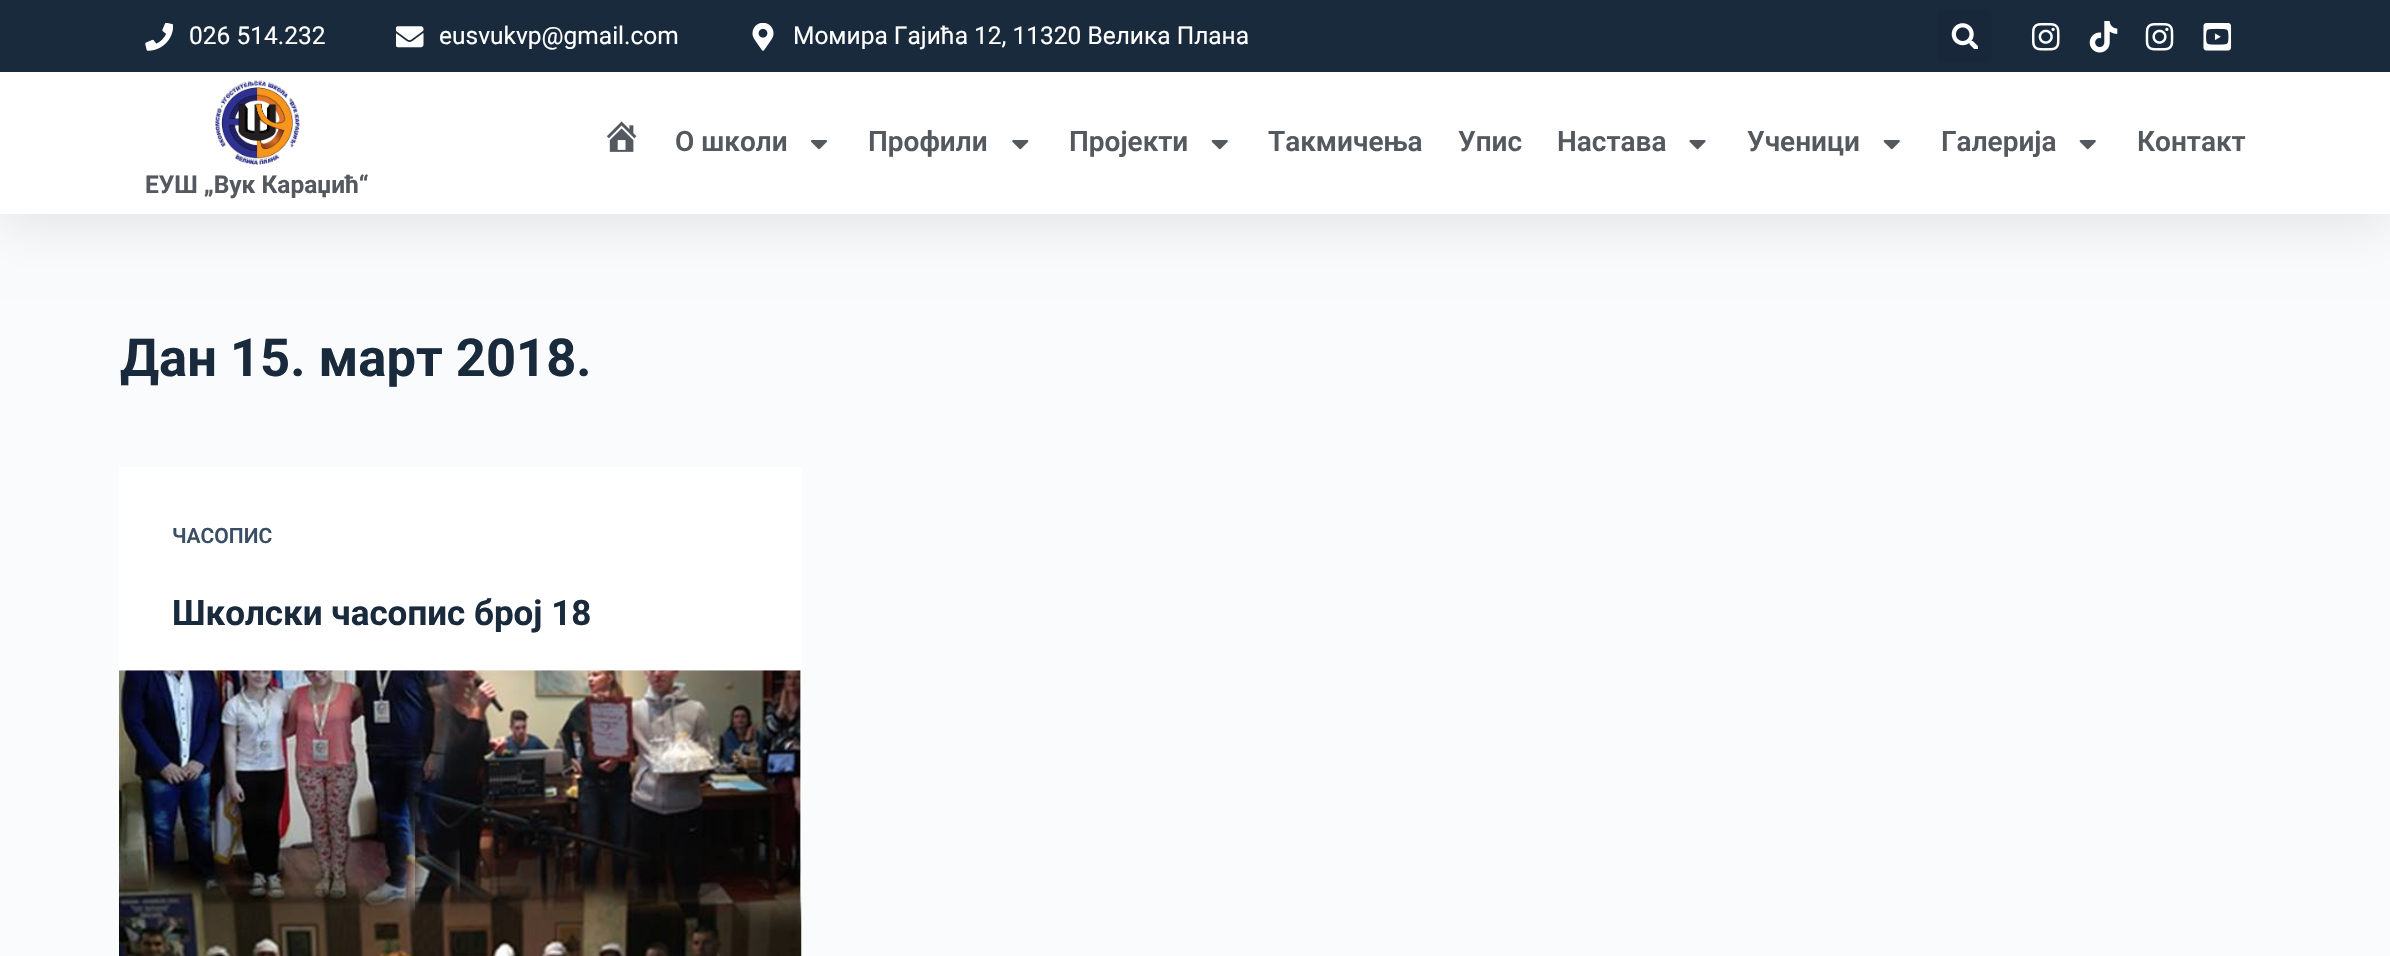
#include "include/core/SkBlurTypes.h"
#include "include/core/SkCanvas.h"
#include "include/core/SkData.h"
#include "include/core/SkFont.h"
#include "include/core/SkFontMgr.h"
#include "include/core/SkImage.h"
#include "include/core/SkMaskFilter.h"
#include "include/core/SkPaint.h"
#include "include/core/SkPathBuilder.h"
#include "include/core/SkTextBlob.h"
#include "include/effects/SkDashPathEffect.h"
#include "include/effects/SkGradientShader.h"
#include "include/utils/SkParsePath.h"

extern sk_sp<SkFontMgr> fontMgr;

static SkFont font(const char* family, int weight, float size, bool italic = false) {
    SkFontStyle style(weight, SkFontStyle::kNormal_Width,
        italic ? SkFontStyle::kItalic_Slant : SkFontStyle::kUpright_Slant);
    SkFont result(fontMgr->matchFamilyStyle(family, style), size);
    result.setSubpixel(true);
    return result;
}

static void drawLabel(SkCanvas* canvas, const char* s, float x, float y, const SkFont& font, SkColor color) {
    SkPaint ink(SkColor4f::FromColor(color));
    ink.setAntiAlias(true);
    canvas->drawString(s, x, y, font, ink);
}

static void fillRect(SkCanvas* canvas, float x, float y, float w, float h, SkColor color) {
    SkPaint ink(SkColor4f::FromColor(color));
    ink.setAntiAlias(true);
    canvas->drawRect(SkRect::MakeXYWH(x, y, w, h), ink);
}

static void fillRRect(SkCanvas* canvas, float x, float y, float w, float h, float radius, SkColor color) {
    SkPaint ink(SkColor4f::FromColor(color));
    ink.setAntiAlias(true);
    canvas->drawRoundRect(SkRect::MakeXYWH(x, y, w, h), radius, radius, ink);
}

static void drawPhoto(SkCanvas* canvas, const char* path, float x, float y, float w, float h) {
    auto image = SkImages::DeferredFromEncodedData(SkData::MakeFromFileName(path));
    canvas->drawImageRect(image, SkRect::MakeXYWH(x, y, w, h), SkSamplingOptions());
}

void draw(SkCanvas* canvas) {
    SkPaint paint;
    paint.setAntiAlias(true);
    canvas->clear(0xFFFAFBFC);
    paint.setColor(0x1A000000);
    paint.setMaskFilter(SkMaskFilter::MakeBlur(kNormal_SkBlurStyle, 26));
    canvas->drawRect(SkRect::MakeXYWH(0, 9, 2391, 213), paint);
    paint.setMaskFilter(nullptr);
    fillRect(canvas, 0, 0, 2390, 72, 0xFF192A3D);
    drawPhoto(canvas, "assets/img1.png", 145, 23, 28, 28);
    SkFont font1 = font("Roboto", 400, 24.5f);
    drawLabel(canvas, "026 514.232", 189, 44, font1, 0xFFFFFFFF);
    drawPhoto(canvas, "assets/img2.png", 396, 26, 28, 22);
    drawLabel(canvas, "eusvukvp@gmail.com", 439, 44, font1, 0xFFFFFFFF);
    drawPhoto(canvas, "assets/img3.png", 752, 23, 22, 28);
    drawLabel(canvas, "Момира Гајића 12, 11320 Велика Плана", 793, 44, font1, 0xFFFFFFFF);
    fillRRect(canvas, 1937, 9, 55, 54, 5, 0xFF18283A);
    drawPhoto(canvas, "assets/img4.png", 1951, 23, 27, 26);
    drawPhoto(canvas, "assets/img5.png", 2031, 22, 29, 29);
    drawPhoto(canvas, "assets/img6.png", 2089, 21, 29, 32);
    drawPhoto(canvas, "assets/img7.png", 2145, 22, 29, 29);
    drawPhoto(canvas, "assets/img8.png", 2203, 23, 29, 28);
    fillRect(canvas, 0, 72, 2390, 142, 0xFFFFFFFF);
    drawPhoto(canvas, "assets/img9.png", 606, 121, 31, 31);
    SkFont font2 = font("Roboto", 600, 28);
    drawLabel(canvas, "О школи", 675, 151, font2, 0xFF54595F);
    drawPhoto(canvas, "assets/img10.png", 810, 140, 18, 10);
    drawLabel(canvas, "Профили", 868, 151, font2, 0xFF54595F);
    drawPhoto(canvas, "assets/img11.png", 1012, 140, 17, 10);
    drawLabel(canvas, "Пројекти", 1069, 151, font2, 0xFF54595F);
    drawPhoto(canvas, "assets/img12.png", 1211, 140, 17, 10);
    drawLabel(canvas, "Такмичења", 1268, 151, font2, 0xFF54595F);
    drawLabel(canvas, "Упис", 1458, 151, font2, 0xFF54595F);
    drawLabel(canvas, "Настава", 1557, 151, font2, 0xFF54595F);
    drawPhoto(canvas, "assets/img13.png", 1689, 140, 17, 10);
    drawLabel(canvas, "Ученици", 1747, 151, font2, 0xFF54595F);
    drawPhoto(canvas, "assets/img12.png", 1883, 140, 17, 10);
    drawLabel(canvas, "Галерија", 1941, 151, font2, 0xFF54595F);
    drawPhoto(canvas, "assets/img12.png", 2079, 140, 17, 10);
    drawLabel(canvas, "Контакт", 2137, 151, font2, 0xFF54595F);
    drawPhoto(canvas, "assets/img14.png", 215, 80, 85, 85);
    SkFont font3 = font("Roboto", 700, 24.5f);
    drawLabel(canvas, "ЕУШ „Вук Караџић“", 145, 193, font3, 0xFF54595F);
    SkFont font4 = font("Roboto", 700, 52.5f);
    drawLabel(canvas, "Дан 15. март 2018.", 120, 376, font4, 0xFF192A3D);
    fillRect(canvas, 119, 467, 683, 489, 0xFFFFFFFF);
    SkFont font5 = font("Roboto", 600, 21);
    drawLabel(canvas, "ЧАСОПИС", 172, 543, font5, 0xFF3A4F66);
    SkFont font6 = font("Roboto", 700, 35);
    drawLabel(canvas, "Школски часопис број 18", 172, 625, font6, 0xFF192A3D);
    drawPhoto(canvas, "assets/img15.png", 119, 670, 683, 286);
}
